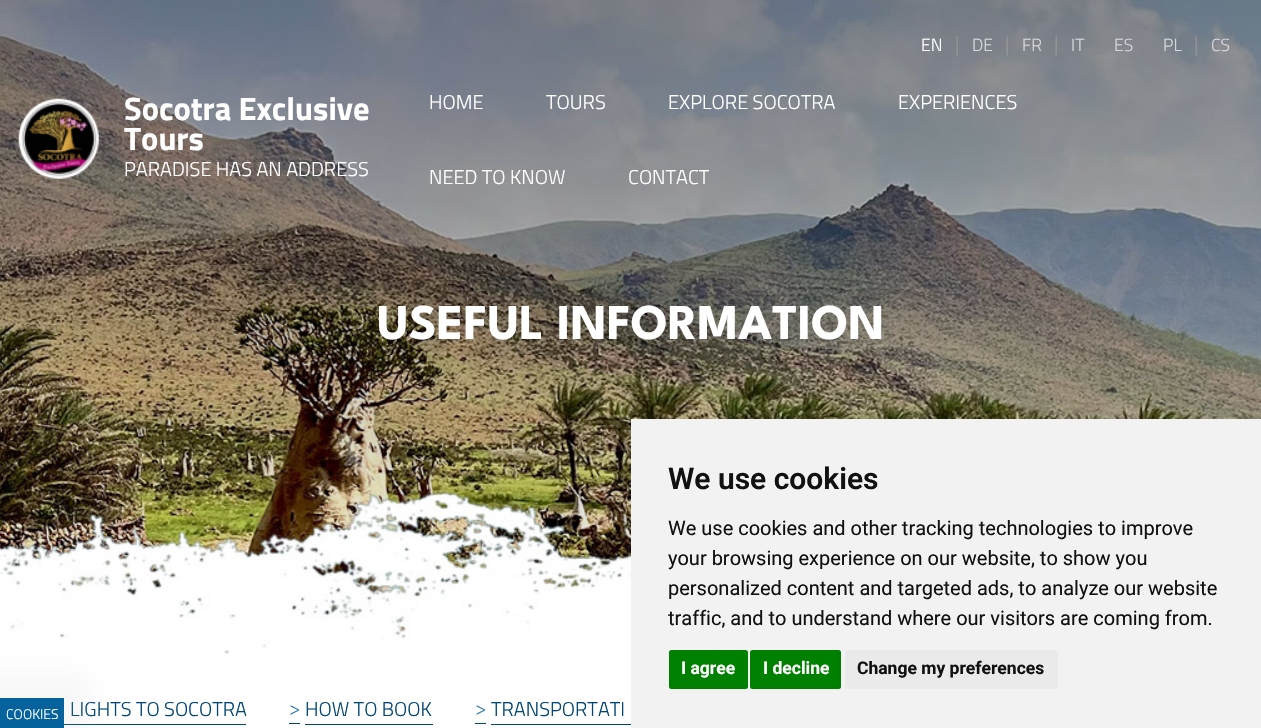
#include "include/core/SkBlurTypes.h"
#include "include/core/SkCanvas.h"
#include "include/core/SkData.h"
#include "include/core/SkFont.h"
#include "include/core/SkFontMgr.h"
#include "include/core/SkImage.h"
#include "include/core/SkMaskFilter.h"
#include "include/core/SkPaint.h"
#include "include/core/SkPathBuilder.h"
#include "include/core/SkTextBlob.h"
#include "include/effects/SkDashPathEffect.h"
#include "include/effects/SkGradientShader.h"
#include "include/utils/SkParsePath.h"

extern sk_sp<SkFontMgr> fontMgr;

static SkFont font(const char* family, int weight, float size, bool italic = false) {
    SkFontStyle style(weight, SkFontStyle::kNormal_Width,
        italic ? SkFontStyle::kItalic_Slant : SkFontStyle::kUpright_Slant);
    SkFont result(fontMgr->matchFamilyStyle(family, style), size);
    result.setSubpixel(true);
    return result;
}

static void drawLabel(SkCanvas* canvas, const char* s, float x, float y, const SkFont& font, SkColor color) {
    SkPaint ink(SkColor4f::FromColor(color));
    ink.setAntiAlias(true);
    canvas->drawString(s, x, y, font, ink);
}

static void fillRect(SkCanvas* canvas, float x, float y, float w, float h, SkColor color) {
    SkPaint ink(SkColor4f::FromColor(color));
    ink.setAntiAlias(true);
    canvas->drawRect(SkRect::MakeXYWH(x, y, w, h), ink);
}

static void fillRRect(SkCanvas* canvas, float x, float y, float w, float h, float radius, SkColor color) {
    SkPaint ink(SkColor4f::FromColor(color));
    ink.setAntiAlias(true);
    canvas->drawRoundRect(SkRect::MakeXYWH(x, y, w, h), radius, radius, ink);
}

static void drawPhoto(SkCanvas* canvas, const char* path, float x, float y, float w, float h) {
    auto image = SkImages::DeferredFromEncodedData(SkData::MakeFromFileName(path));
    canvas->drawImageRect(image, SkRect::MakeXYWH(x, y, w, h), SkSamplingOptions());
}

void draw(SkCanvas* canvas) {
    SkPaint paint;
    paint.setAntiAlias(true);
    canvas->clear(0xFFFFFFFF);
    drawPhoto(canvas, "assets/img2.png", 0, 0, 1261, 655);
    SkFont font1 = font("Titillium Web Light", 300, 17.5f);
    drawLabel(canvas, "EN", 921, 51, font1, 0xFFFFFFFF);
    SkFont font2 = font("Titillium Web Light", 300, 20);
    drawLabel(canvas, "|", 955, 51, font2, 0xFF969696);
    drawLabel(canvas, "DE", 972, 51, font1, 0xFFD7D8DB);
    drawLabel(canvas, "|", 1005, 51, font2, 0xFF969696);
    drawLabel(canvas, "FR", 1022, 51, font1, 0xFFD7D8DB);
    drawLabel(canvas, "|", 1054, 51, font2, 0xFF969696);
    drawLabel(canvas, "IT", 1071, 51, font1, 0xFFD7D8DB);
    drawLabel(canvas, "ES", 1114, 51, font1, 0xFFD7D8DB);
    drawLabel(canvas, "PL", 1163, 51, font1, 0xFFD7D8DB);
    drawLabel(canvas, "|", 1194, 51, font2, 0xFF969696);
    drawLabel(canvas, "CS", 1211, 51, font1, 0xFFD7D8DB);
    drawPhoto(canvas, "assets/img1.png", 18, 98, 81, 81);
    SkFont font3 = font("Titillium Web", 700, 32.5f);
    drawLabel(canvas, "Socotra Exclusive", 124, 120, font3, 0xFFFFFFFF);
    drawLabel(canvas, "Tours", 124, 150, font3, 0xFFFFFFFF);
    drawLabel(canvas, "PARADISE HAS AN ADDRESS", 124, 176, font2, 0xFFFFFFFF);
    drawLabel(canvas, "HOME", 429, 109, font2, 0xFFFFFFFF);
    drawLabel(canvas, "TOURS", 546, 109, font2, 0xFFFFFFFF);
    drawLabel(canvas, "EXPLORE SOCOTRA", 668, 109, font2, 0xFFFFFFFF);
    drawLabel(canvas, "EXPERIENCES", 898, 109, font2, 0xFFFFFFFF);
    drawLabel(canvas, "NEED TO KNOW", 429, 184, font2, 0xFFFFFFFF);
    drawLabel(canvas, "CONTACT", 628, 184, font2, 0xFFFFFFFF);
    SkFont font4 = font("League Spartan", 100, 50);
    drawLabel(canvas, "USEFUL INFORMATION", 377, 339, font4, 0xFFFFFFFF);
    drawLabel(canvas, "LIGHTS TO SOCOTRA", 70, 716, font2, 0xFF014674);
    fillRect(canvas, 59, 724, 187, 1, 0xFF014674);
    drawLabel(canvas, ">", 289, 715, font2, 0xFF337AB7);
    fillRect(canvas, 289, 723, 11, 1, 0xFF014674);
    drawLabel(canvas, "HOW TO BOOK", 305, 716, font2, 0xFF014674);
    fillRect(canvas, 305, 724, 128, 1, 0xFF014674);
    drawLabel(canvas, ">", 475, 715, font2, 0xFF337AB7);
    fillRect(canvas, 475, 723, 11, 1, 0xFF014674);
    drawLabel(canvas, "TRANSPORTATI", 491, 716, font2, 0xFF014674);
    fillRect(canvas, 491, 724, 140, 1, 0xFF014674);
    fillRect(canvas, 631, 419, 630, 309, 0xFFF2F2F2);
    SkFont font5 = font("Roboto", 600, 30);
    drawLabel(canvas, "We use cookies", 668, 489, font5, 0xFF111111);
    SkFont font6 = font("Roboto", 400, 20);
    drawLabel(canvas, "We use cookies and other tracking technologies to improve", 668, 535, font6, 0xFF111111);
    drawLabel(canvas, "your browsing experience on our website, to show you", 668, 565, font6, 0xFF111111);
    drawLabel(canvas, "personalized content and targeted ads, to analyze our website", 668, 595, font6, 0xFF111111);
    drawLabel(canvas, "traffic, and to understand where our visitors are coming from.", 668, 625, font6, 0xFF111111);
    fillRRect(canvas, 669, 650, 79, 39, 2.5f, 0xFF008000);
    SkFont font7 = font("Roboto", 700, 17.5f);
    drawLabel(canvas, "I agree", 681, 674, font7, 0xFFFFFFFF);
    fillRRect(canvas, 750, 650, 91, 39, 2.5f, 0xFF008000);
    drawLabel(canvas, "I decline", 763, 674, font7, 0xFFFFFFFF);
    fillRRect(canvas, 845, 650, 213, 39, 2.5f, 0xFFEAEAEA);
    drawLabel(canvas, "Change my preferences", 857, 674, font7, 0xFF111111);
    paint.setColor(0x1AB3B3B3);
    paint.setMaskFilter(SkMaskFilter::MakeBlur(kNormal_SkBlurStyle, 12.5f));
    canvas->drawRect(SkRect::MakeXYWH(-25, 673, 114, 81), paint);
    paint.setMaskFilter(nullptr);
    fillRect(canvas, 0, 698, 64, 30, 0xFF06629C);
    SkFont font8 = font("Titillium Web Light", 300, 14);
    drawLabel(canvas, "COOKIES", 6, 719, font8, 0xFFFFFFFF);
}
